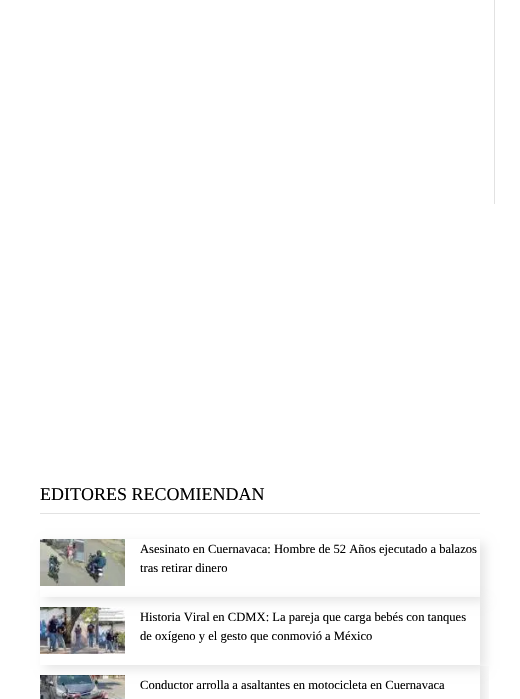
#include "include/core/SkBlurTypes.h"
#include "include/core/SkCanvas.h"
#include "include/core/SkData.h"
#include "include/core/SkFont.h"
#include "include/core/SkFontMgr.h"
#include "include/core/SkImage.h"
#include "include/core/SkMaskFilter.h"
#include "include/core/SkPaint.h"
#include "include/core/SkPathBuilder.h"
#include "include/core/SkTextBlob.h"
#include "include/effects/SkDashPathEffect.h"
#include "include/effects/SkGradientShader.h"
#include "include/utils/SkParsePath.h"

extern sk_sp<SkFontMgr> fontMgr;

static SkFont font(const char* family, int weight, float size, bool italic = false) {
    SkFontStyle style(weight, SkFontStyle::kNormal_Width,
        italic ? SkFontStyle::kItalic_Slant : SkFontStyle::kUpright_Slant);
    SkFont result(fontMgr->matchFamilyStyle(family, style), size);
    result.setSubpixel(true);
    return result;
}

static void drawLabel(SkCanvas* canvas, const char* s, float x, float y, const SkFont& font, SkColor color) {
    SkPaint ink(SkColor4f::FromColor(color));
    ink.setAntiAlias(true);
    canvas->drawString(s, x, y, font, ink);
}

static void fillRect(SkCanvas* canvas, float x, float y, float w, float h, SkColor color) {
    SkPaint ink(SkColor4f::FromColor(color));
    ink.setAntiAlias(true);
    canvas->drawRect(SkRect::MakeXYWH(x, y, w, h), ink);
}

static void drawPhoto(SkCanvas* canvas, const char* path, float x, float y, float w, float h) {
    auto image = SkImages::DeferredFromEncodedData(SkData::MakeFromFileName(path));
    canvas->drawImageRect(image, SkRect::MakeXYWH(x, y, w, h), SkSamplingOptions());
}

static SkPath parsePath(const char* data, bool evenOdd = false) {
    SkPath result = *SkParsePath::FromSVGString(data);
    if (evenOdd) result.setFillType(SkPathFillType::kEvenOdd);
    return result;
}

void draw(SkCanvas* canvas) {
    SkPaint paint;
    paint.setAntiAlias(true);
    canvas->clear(0xFFFFFFFF);
    fillRect(canvas, 494, 0, 1, 204, 0xFFE2E2E2);
    fillRect(canvas, 40, 513, 440, 1, 0xFFE2E2E2);
    SkFont font1 = font("Liberation Serif", 400, 18);
    drawLabel(canvas, "EDITORES RECOMIENDAN", 40, 500, font1, 0xFF000000);
    canvas->save();
    canvas->clipPath(parsePath("M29 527H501V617H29ZM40 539H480V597H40Z", true), true);
    paint.setColor(0x1A000000);
    paint.setMaskFilter(SkMaskFilter::MakeBlur(kNormal_SkBlurStyle, 5));
    canvas->drawRect(SkRect::MakeXYWH(45, 543, 440, 58), paint);
    paint.setMaskFilter(nullptr);
    canvas->restore();
    canvas->save();
    canvas->clipPath(parsePath("M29 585H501V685H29ZM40 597H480V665H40Z", true), true);
    paint.setMaskFilter(SkMaskFilter::MakeBlur(kNormal_SkBlurStyle, 5));
    canvas->drawRect(SkRect::MakeXYWH(45, 601, 440, 68), paint);
    paint.setMaskFilter(nullptr);
    canvas->restore();
    drawPhoto(canvas, "assets/img1.png", 40, 539, 85, 47);
    SkFont font2 = font("Liberation Serif", 400, 12.6f);
    drawLabel(canvas, "Asesinato en Cuernavaca: Hombre de 52 Años ejecutado a balazos", 140, 553, font2, 0xFF000000);
    drawLabel(canvas, "tras retirar dinero", 140, 572, font2, 0xFF000000);
    canvas->save();
    canvas->clipRect(SkRect::MakeXYWH(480, 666, 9, 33));
    paint.setMaskFilter(SkMaskFilter::MakeBlur(kNormal_SkBlurStyle, 5));
    canvas->drawRect(SkRect::MakeXYWH(45, 669, 440, 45), paint);
    paint.setMaskFilter(nullptr);
    canvas->restore();
    drawPhoto(canvas, "assets/img2.png", 40, 607, 85, 47);
    drawLabel(canvas, "Historia Viral en CDMX: La pareja que carga bebés con tanques", 140, 621, font2, 0xFF000000);
    drawLabel(canvas, "de oxígeno y el gesto que conmovió a México", 140, 640, font2, 0xFF000000);
    drawPhoto(canvas, "assets/img3.png", 40, 675, 85, 24);
    drawLabel(canvas, "Conductor arrolla a asaltantes en motocicleta en Cuernavaca", 140, 689, font2, 0xFF000000);
}
